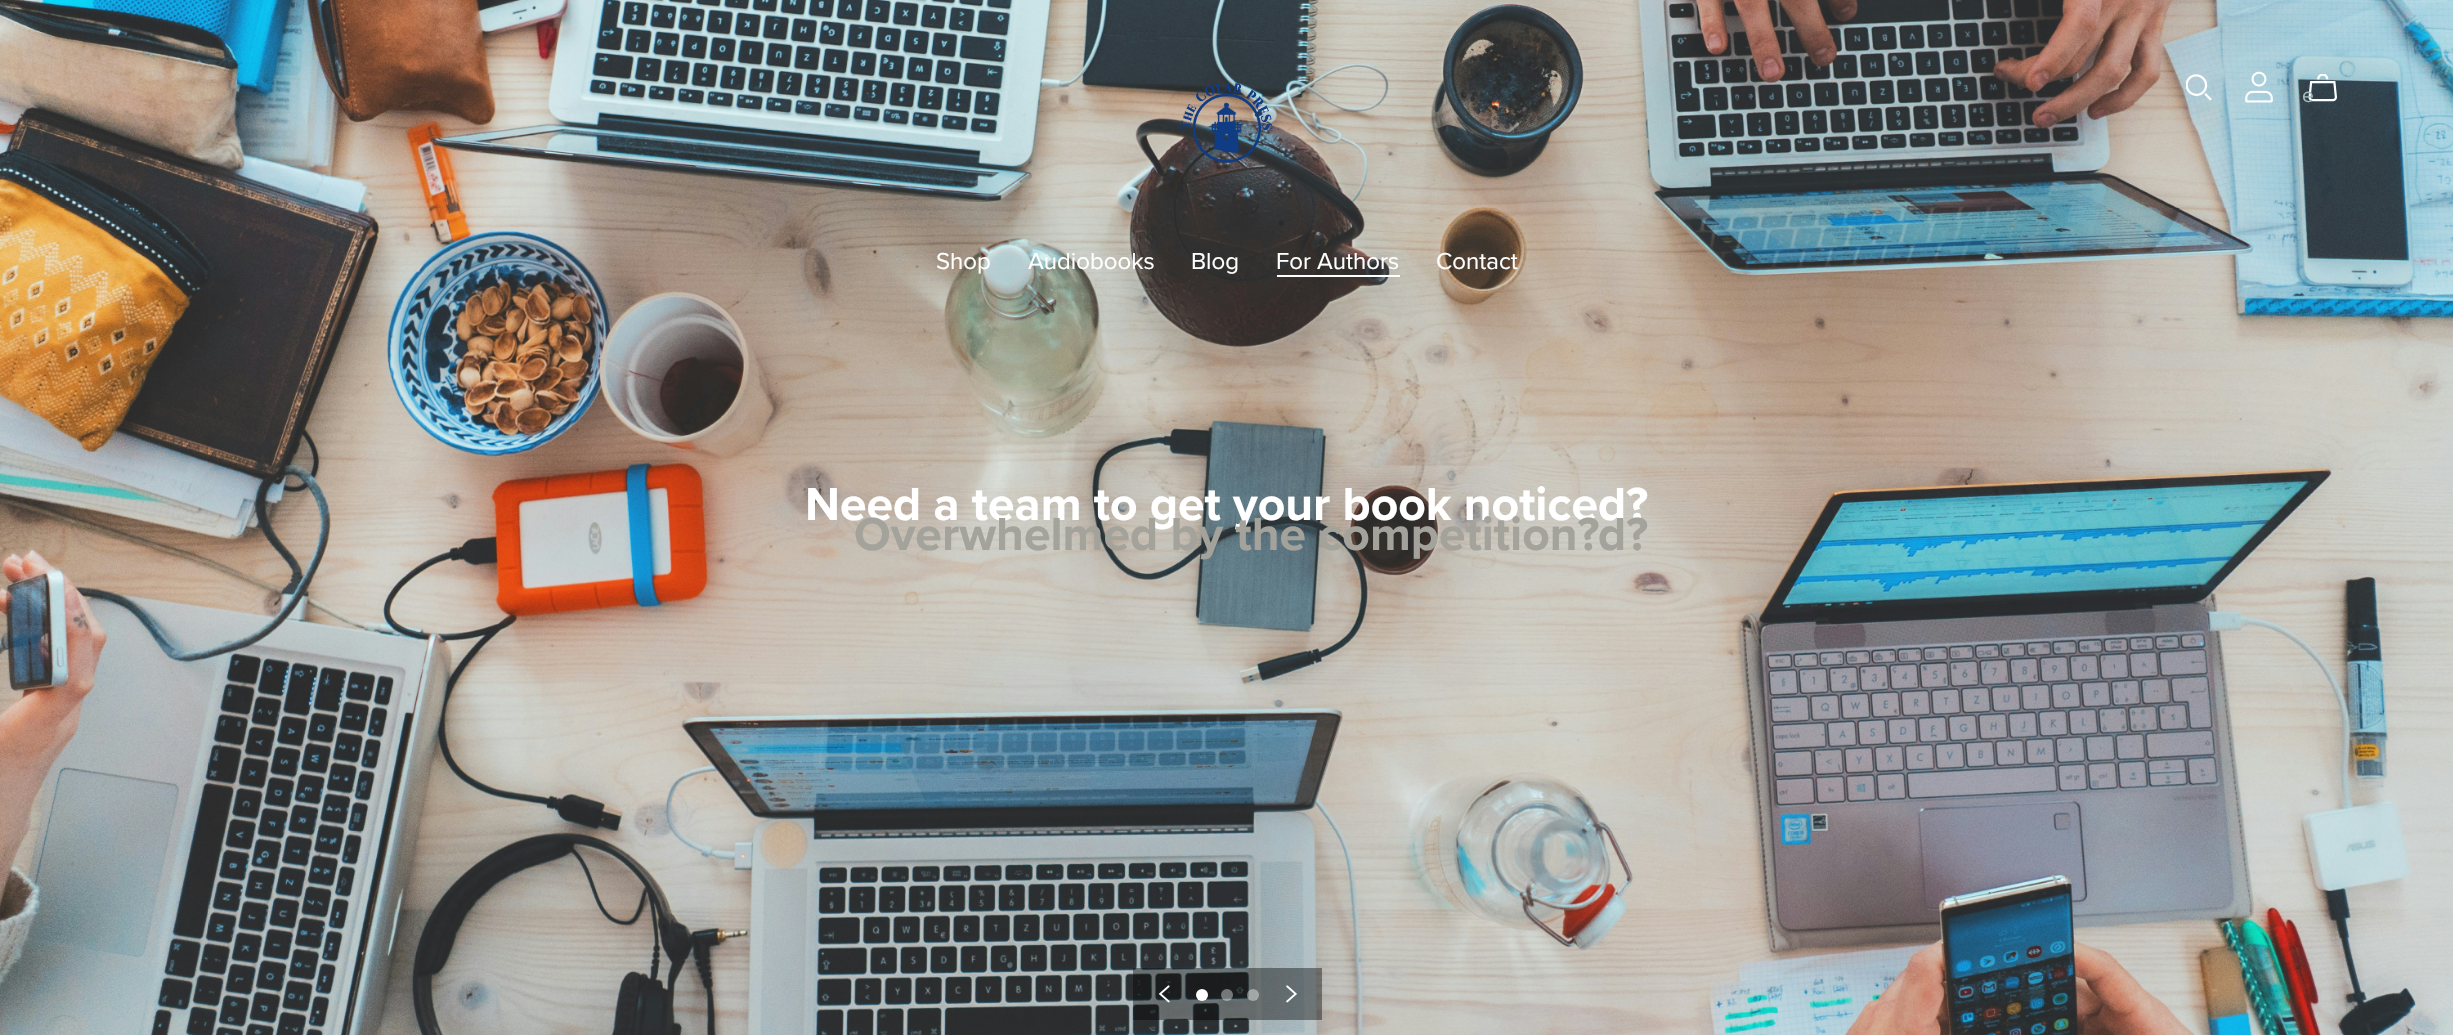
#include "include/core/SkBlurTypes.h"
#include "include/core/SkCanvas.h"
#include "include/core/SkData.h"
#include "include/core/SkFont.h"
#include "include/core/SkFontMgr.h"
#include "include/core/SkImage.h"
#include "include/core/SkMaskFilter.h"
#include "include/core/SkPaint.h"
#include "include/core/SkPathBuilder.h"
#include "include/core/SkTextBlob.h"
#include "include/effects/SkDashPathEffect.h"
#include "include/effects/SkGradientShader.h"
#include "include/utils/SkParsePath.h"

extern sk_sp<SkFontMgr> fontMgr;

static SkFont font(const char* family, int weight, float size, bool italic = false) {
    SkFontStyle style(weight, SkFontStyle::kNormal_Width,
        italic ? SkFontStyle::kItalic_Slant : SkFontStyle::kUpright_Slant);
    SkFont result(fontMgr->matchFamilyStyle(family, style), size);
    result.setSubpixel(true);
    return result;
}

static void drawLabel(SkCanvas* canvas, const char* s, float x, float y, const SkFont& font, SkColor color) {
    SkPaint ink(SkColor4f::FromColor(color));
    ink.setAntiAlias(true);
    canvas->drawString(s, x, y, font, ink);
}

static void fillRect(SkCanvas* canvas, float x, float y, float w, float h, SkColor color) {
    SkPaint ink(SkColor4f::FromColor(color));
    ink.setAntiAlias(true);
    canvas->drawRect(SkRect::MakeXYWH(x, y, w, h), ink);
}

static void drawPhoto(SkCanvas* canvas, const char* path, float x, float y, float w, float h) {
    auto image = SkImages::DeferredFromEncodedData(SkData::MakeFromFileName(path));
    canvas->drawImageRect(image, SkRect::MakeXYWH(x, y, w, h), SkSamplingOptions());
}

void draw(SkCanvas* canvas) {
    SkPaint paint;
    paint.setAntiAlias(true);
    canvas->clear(0xFFFFFFFF);
    drawPhoto(canvas, "assets/img5.png", 0, 0, 2453, 1035);
    drawPhoto(canvas, "assets/img1.png", 2245, 71, 28, 32);
    drawPhoto(canvas, "assets/img2.png", 2308, 74, 29, 28);
    drawPhoto(canvas, "assets/img3.png", 2186, 74, 26, 27);
    canvas->save();
    canvas->clipRect(SkRect::MakeXYWH(2166, 83, 147, 25));
    SkFont font1 = font("Proxima Nova", 400, 21);
    drawLabel(canvas, "e", 2302, 102, font1, 0xFFA9BCC2);
    canvas->restore();
    drawPhoto(canvas, "assets/img4.png", 1180, 82, 93, 81);
    SkFont font2 = font("Proxima Nova", 400, 24);
    drawLabel(canvas, "Shop", 936, 269, font2, 0xFFFFFFFF);
    drawLabel(canvas, "Audiobooks", 1028, 269, font2, 0xFFFFFFFF);
    drawLabel(canvas, "Blog", 1191, 269, font2, 0xFFFFFFFF);
    drawLabel(canvas, "For Authors", 1276, 269, font2, 0xFFFFFFFF);
    fillRect(canvas, 1277, 275, 123, 2, 0xFFFFFFFF);
    drawLabel(canvas, "Contact", 1436, 269, font2, 0xFFFFFFFF);
    SkFont font3 = font("Proxima Nova", 700, 48);
    drawLabel(canvas, "Need a team to get your book noticed?", 805, 520, font3, 0xFFFFFFFF);
    drawLabel(canvas, "Overwhelmed by the competition?", 854, 550, font3, 0xFFA3A29B);
    drawLabel(canvas, "d?", 1598, 550, font3, 0xFFA3A29B);
    fillRect(canvas, 1133, 968, 189, 52, 0x66000000);
    drawPhoto(canvas, "assets/img6.png", 1158, 985, 12, 18);
    paint.setColor(0xFFFFFFFF);
    canvas->drawCircle(1202, 995, 6, paint);
    paint.setColor(0x66FFFFFF);
    canvas->drawCircle(1227, 995, 6, paint);
    canvas->drawCircle(1253, 995, 6, paint);
    drawPhoto(canvas, "assets/img7.png", 1286, 985, 11, 18);
}
